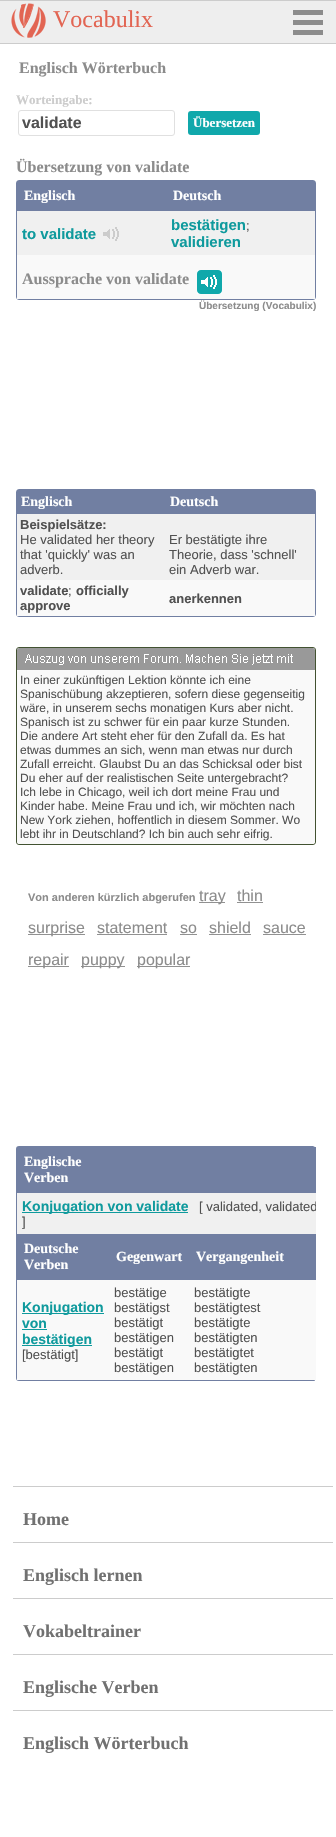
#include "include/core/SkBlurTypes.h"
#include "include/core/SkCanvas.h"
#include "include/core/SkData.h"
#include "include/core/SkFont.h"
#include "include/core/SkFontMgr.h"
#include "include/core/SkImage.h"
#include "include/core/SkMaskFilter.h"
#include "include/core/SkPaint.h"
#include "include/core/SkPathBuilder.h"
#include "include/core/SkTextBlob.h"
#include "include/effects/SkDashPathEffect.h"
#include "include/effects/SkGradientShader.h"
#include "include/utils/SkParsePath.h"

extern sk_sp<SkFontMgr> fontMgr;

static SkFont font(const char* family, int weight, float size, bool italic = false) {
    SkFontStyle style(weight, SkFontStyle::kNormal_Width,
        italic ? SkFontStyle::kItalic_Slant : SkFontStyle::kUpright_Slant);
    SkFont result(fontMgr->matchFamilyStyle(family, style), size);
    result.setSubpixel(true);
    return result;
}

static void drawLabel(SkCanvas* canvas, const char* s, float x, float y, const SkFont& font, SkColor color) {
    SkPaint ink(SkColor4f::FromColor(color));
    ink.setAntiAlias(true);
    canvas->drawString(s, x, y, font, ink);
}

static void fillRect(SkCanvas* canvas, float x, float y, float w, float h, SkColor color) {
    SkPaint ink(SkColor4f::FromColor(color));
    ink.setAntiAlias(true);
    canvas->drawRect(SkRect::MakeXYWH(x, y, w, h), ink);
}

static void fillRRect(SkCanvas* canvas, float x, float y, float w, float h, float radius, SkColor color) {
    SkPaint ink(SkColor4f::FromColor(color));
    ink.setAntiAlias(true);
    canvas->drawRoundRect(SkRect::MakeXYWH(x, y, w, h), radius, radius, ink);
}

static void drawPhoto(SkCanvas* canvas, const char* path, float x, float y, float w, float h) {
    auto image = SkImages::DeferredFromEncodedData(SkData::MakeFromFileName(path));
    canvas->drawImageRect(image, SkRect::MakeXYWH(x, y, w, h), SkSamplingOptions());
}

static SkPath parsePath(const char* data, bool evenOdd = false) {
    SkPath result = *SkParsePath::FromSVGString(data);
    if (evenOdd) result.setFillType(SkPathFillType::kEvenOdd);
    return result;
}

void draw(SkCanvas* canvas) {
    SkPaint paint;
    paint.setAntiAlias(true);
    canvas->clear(0xFFFFFFFF);
    paint.setColor(0xFFEEEEEE);
    canvas->drawRect(SkRect::MakeXYWH(-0.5f, 0.5f, 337, 43), paint);
    paint.setStroke(true);
    paint.setStrokeWidth(1);
    paint.setColor(0xFFCCCCCC);
    canvas->drawRect(SkRect::MakeXYWH(-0.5f, 0.5f, 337, 43), paint);
    drawPhoto(canvas, "assets/img1.png", 11, 3, 35, 35);
    SkFont font1 = font("Liberation Serif", 400, 24);
    drawLabel(canvas, "Vocabulix", 53, 27, font1, 0xFFE26553);
    fillRect(canvas, 293, 10, 30, 5, 0xFF8C8C8C);
    fillRect(canvas, 293, 20, 30, 5, 0xFF8C8C8C);
    fillRect(canvas, 293, 30, 30, 5, 0xFF8C8C8C);
    fillRect(canvas, 13, 1486, 320, 1, 0xFFCCCCCC);
    SkFont font2 = font("Liberation Serif", 700, 18);
    drawLabel(canvas, "Home", 23, 1525, font2, 0xFF717171);
    fillRect(canvas, 13, 1542, 320, 1, 0xFFCCCCCC);
    drawLabel(canvas, "Englisch lernen", 23, 1581, font2, 0xFF717171);
    fillRect(canvas, 13, 1598, 320, 1, 0xFFCCCCCC);
    drawLabel(canvas, "Vokabeltrainer", 23, 1637, font2, 0xFF717171);
    fillRect(canvas, 13, 1654, 320, 1, 0xFFCCCCCC);
    drawLabel(canvas, "Englische Verben", 23, 1693, font2, 0xFF717171);
    fillRect(canvas, 13, 1710, 320, 1, 0xFFCCCCCC);
    drawLabel(canvas, "Englisch Wörterbuch", 23, 1749, font2, 0xFF717171);
    SkFont font3 = font("Liberation Serif", 700, 16);
    drawLabel(canvas, "Englisch Wörterbuch", 19, 73, font3, 0xFF8C8C8C);
    SkFont font4 = font("Liberation Serif", 700, 13);
    drawLabel(canvas, "Worteingabe:", 16, 104, font4, 0xFFCCCCCC);
    paint.setColor(0xFFE0E0E0);
    canvas->drawRoundRect(SkRect::MakeXYWH(18.5f, 110.5f, 156, 25), 2.5f, 2.5f, paint);
    SkFont font5 = font("Liberation Sans", 700, 16);
    drawLabel(canvas, "validate", 22, 128, font5, 0xFF515151);
    fillRRect(canvas, 188, 111, 72, 24, 3, 0xFF10A8AB);
    drawLabel(canvas, "Übersetzen", 193, 127, font4, 0xFFFFFFFF);
    drawLabel(canvas, "Übersetzung von validate", 16, 172, font3, 0xFF8C8C8C);
    paint.setColor(0xFF717FA2);
    canvas->drawRoundRect(SkRect::MakeXYWH(16.5f, 180.5f, 299, 119), 2.5f, 2.5f, paint);
    fillRect(canvas, 17, 181, 298, 30, 0xFF717FA2);
    SkFont font6 = font("Liberation Serif", 700, 14);
    drawLabel(canvas, "Englisch", 24, 200, font6, 0xFFFFFFFF);
    drawLabel(canvas, "Deutsch", 173, 200, font6, 0xFFFFFFFF);
    fillRect(canvas, 17, 211, 298, 44, 0xFFF0F0F0);
    SkFont font7 = font("Liberation Sans", 700, 15);
    drawLabel(canvas, "to validate", 22, 239, font7, 0xFF0F9A9D);
    drawPhoto(canvas, "assets/img2.png", 103, 227, 16, 14);
    drawLabel(canvas, "bestätigen", 171, 230, font7, 0xFF0F9A9D);
    SkFont font8 = font("Liberation Sans", 400, 13);
    drawLabel(canvas, ";", 246, 230, font8, 0xFF515151);
    drawLabel(canvas, "validieren", 171, 247, font7, 0xFF0F9A9D);
    fillRect(canvas, 17, 255, 298, 44, 0xFFF9F9F9);
    drawLabel(canvas, "Aussprache von validate", 22, 284, font3, 0xFF8C8C8C);
    drawPhoto(canvas, "assets/img3.png", 197, 270, 25, 24);
    SkFont font9 = font("Liberation Sans", 700, 10);
    drawLabel(canvas, "Übersetzung (Vocabulix)", 199, 309, font9, 0xFF8C8C8C);
    canvas->drawRoundRect(SkRect::MakeXYWH(16.5f, 489.5f, 299, 127), 2.5f, 2.5f, paint);
    fillRect(canvas, 17, 490, 298, 24, 0xFF717FA2);
    drawLabel(canvas, "Englisch", 21, 506, font6, 0xFFFFFFFF);
    drawLabel(canvas, "Deutsch", 170, 506, font6, 0xFFFFFFFF);
    fillRect(canvas, 17, 514, 298, 66, 0xFFF0F0F0);
    SkFont font10 = font("Liberation Sans", 700, 13);
    drawLabel(canvas, "Beispielsätze:", 20, 529, font10, 0xFF515151);
    drawLabel(canvas, "He validated her theory", 20, 544, font8, 0xFF515151);
    drawLabel(canvas, "that 'quickly' was an", 20, 559, font8, 0xFF515151);
    drawLabel(canvas, "adverb.", 20, 574, font8, 0xFF515151);
    drawLabel(canvas, "Er bestätigte ihre", 169, 544, font8, 0xFF515151);
    drawLabel(canvas, "Theorie, dass 'schnell'", 169, 559, font8, 0xFF515151);
    drawLabel(canvas, "ein Adverb war.", 169, 574, font8, 0xFF515151);
    fillRect(canvas, 17, 580, 298, 36, 0xFFF9F9F9);
    drawLabel(canvas, "validate", 20, 595, font10, 0xFF515151);
    drawLabel(canvas, ";", 68, 595, font8, 0xFF515151);
    drawLabel(canvas, "officially", 76, 595, font10, 0xFF515151);
    drawLabel(canvas, "approve", 20, 610, font10, 0xFF515151);
    drawLabel(canvas, "anerkennen", 169, 603, font10, 0xFF515151);
    paint.setColor(0xFF425231);
    canvas->drawRoundRect(SkRect::MakeXYWH(16.5f, 647.5f, 299, 197), 2.5f, 2.5f, paint);
    paint.setStroke(false);
    paint.setColor(0xFF999999);
    canvas->drawPath(parsePath("M19 648H313C314 648 315 649 315 650V670H17V650C17 649 18 648 19 648Z"), paint);
    drawPhoto(canvas, "assets/img4.png", 25, 654, 268, 11);
    fillRRect(canvas, 17, 670, 298, 174, 3, 0xFFF9F9F9);
    SkFont font11 = font("Liberation Sans", 400, 12);
    drawLabel(canvas, "In einer zukünftigen Lektion könnte ich eine", 20, 684, font11, 0xFF515151);
    drawLabel(canvas, "Spanischübung akzeptieren, sofern diese gegenseitig", 20, 698, font11, 0xFF515151);
    drawLabel(canvas, "wäre, in unserem sechs monatigen Kurs aber nicht.", 20, 712, font11, 0xFF515151);
    drawLabel(canvas, "Spanisch ist zu schwer für ein paar kurze Stunden.", 20, 726, font11, 0xFF515151);
    drawLabel(canvas, "Die andere Art steht eher für den Zufall da. Es hat", 20, 740, font11, 0xFF515151);
    drawLabel(canvas, "etwas dummes an sich, wenn man etwas nur durch", 20, 754, font11, 0xFF515151);
    drawLabel(canvas, "Zufall erreicht. Glaubst Du an das Schicksal oder bist", 20, 768, font11, 0xFF515151);
    drawLabel(canvas, "Du eher auf der realistischen Seite untergebracht?", 20, 782, font11, 0xFF515151);
    drawLabel(canvas, "Ich lebe in Chicago, weil ich dort meine Frau und", 20, 796, font11, 0xFF515151);
    drawLabel(canvas, "Kinder habe. Meine Frau und ich, wir möchten nach", 20, 810, font11, 0xFF515151);
    drawLabel(canvas, "New York ziehen, hoffentlich in diesem Sommer. Wo", 20, 824, font11, 0xFF515151);
    drawLabel(canvas, "lebt ihr in Deutschland? Ich bin auch sehr eifrig.", 20, 838, font11, 0xFF515151);
    SkFont font12 = font("Liberation Sans", 700, 11);
    drawLabel(canvas, "Von anderen kürzlich abgerufen", 28, 901, font12, 0xFF8C8C8C);
    fillRect(canvas, 199, 902, 26, 1, 0xFF919191);
    SkFont font13 = font("Liberation Sans", 400, 16);
    drawLabel(canvas, "tray", 199, 901, font13, 0xFF8C8C8C);
    drawLabel(canvas, "thin", 237, 901, font13, 0xFF8C8C8C);
    fillRect(canvas, 237, 902, 26, 1, 0xFF919191);
    fillRect(canvas, 28, 934, 57, 1, 0xFF919191);
    drawLabel(canvas, "surprise", 28, 933, font13, 0xFF8C8C8C);
    drawLabel(canvas, "statement", 97, 933, font13, 0xFF8C8C8C);
    fillRect(canvas, 97, 934, 70, 1, 0xFF919191);
    drawLabel(canvas, "so", 180, 933, font13, 0xFF8C8C8C);
    fillRect(canvas, 180, 934, 17, 1, 0xFF919191);
    drawLabel(canvas, "shield", 209, 933, font13, 0xFF8C8C8C);
    fillRect(canvas, 209, 934, 42, 1, 0xFF919191);
    drawLabel(canvas, "sauce", 263, 933, font13, 0xFF8C8C8C);
    fillRect(canvas, 263, 934, 43, 1, 0xFF919191);
    fillRect(canvas, 28, 966, 41, 1, 0xFF919191);
    drawLabel(canvas, "repair", 28, 965, font13, 0xFF8C8C8C);
    fillRect(canvas, 81, 966, 44, 1, 0xFF919191);
    drawLabel(canvas, "puppy", 81, 965, font13, 0xFF8C8C8C);
    fillRect(canvas, 137, 966, 53, 1, 0xFF919191);
    drawLabel(canvas, "popular", 137, 965, font13, 0xFF8C8C8C);
    paint.setColor(0xFF717FA2);
    canvas->drawPath(parsePath("M19 1146C17 1146 16 1147 16 1149V1378C16 1380 17 1381 19 1381H313C314 1381 315 1381 315 1380H19C18 1380 17 1379 17 1378V1149C17 1148 18 1147 19 1147H315L313 1146Z"), paint);
    fillRect(canvas, 17, 1147, 299, 46, 0xFF717FA2);
    drawLabel(canvas, "Englische", 24, 1166, font6, 0xFFFFFFFF);
    drawLabel(canvas, "Verben", 24, 1182, font6, 0xFFFFFFFF);
    fillRect(canvas, 17, 1193, 299, 41, 0xFFF0F0F0);
    fillRect(canvas, 22, 1212, 166, 1, 0xFF0F9A9D);
    SkFont font14 = font("Liberation Sans", 700, 14);
    drawLabel(canvas, "Konjugation von validate", 22, 1211, font14, 0xFF0F9A9D);
    canvas->save();
    canvas->clipPath(parsePath("M19 1146H313C314.5 1146 316 1147.5 316 1149V1378C316 1379.5 314.5 1381 313 1381H19C17.5 1381 16 1379.5 16 1378V1149C16 1147.5 17.5 1146 19 1146Z"), true);
    drawLabel(canvas, "[ validated, validated", 199, 1211, font8, 0xFF515151);
    canvas->restore();
    drawLabel(canvas, "]", 22, 1226, font8, 0xFF515151);
    fillRect(canvas, 17, 1234, 299, 46, 0xFF717FA2);
    drawLabel(canvas, "Deutsche", 24, 1253, font6, 0xFFFFFFFF);
    drawLabel(canvas, "Verben", 24, 1269, font6, 0xFFFFFFFF);
    drawLabel(canvas, "Gegenwart", 116, 1261, font6, 0xFFFFFFFF);
    drawLabel(canvas, "Vergangenheit", 196, 1261, font6, 0xFFFFFFFF);
    fillRect(canvas, 17, 1280, 299, 100, 0xFFF9F9F9);
    fillRect(canvas, 22, 1313, 82, 1, 0xFF0F9A9D);
    drawLabel(canvas, "Konjugation", 22, 1312, font14, 0xFF0F9A9D);
    drawLabel(canvas, "von", 22, 1328, font14, 0xFF0F9A9D);
    fillRect(canvas, 22, 1329, 25, 1, 0xFF0F9A9D);
    fillRect(canvas, 22, 1345, 70, 1, 0xFF0F9A9D);
    drawLabel(canvas, "bestätigen", 22, 1344, font14, 0xFF0F9A9D);
    drawLabel(canvas, "[bestätigt]", 22, 1359, font8, 0xFF515151);
    drawLabel(canvas, "bestätige", 114, 1297, font8, 0xFF515151);
    drawLabel(canvas, "bestätigst", 114, 1312, font8, 0xFF515151);
    drawLabel(canvas, "bestätigt", 114, 1327, font8, 0xFF515151);
    drawLabel(canvas, "bestätigen", 114, 1342, font8, 0xFF515151);
    drawLabel(canvas, "bestätigt", 114, 1357, font8, 0xFF515151);
    drawLabel(canvas, "bestätigen", 114, 1372, font8, 0xFF515151);
    drawLabel(canvas, "bestätigte", 194, 1297, font8, 0xFF515151);
    drawLabel(canvas, "bestätigtest", 194, 1312, font8, 0xFF515151);
    drawLabel(canvas, "bestätigte", 194, 1327, font8, 0xFF515151);
    drawLabel(canvas, "bestätigten", 194, 1342, font8, 0xFF515151);
    drawLabel(canvas, "bestätigtet", 194, 1357, font8, 0xFF515151);
    drawLabel(canvas, "bestätigten", 194, 1372, font8, 0xFF515151);
}
